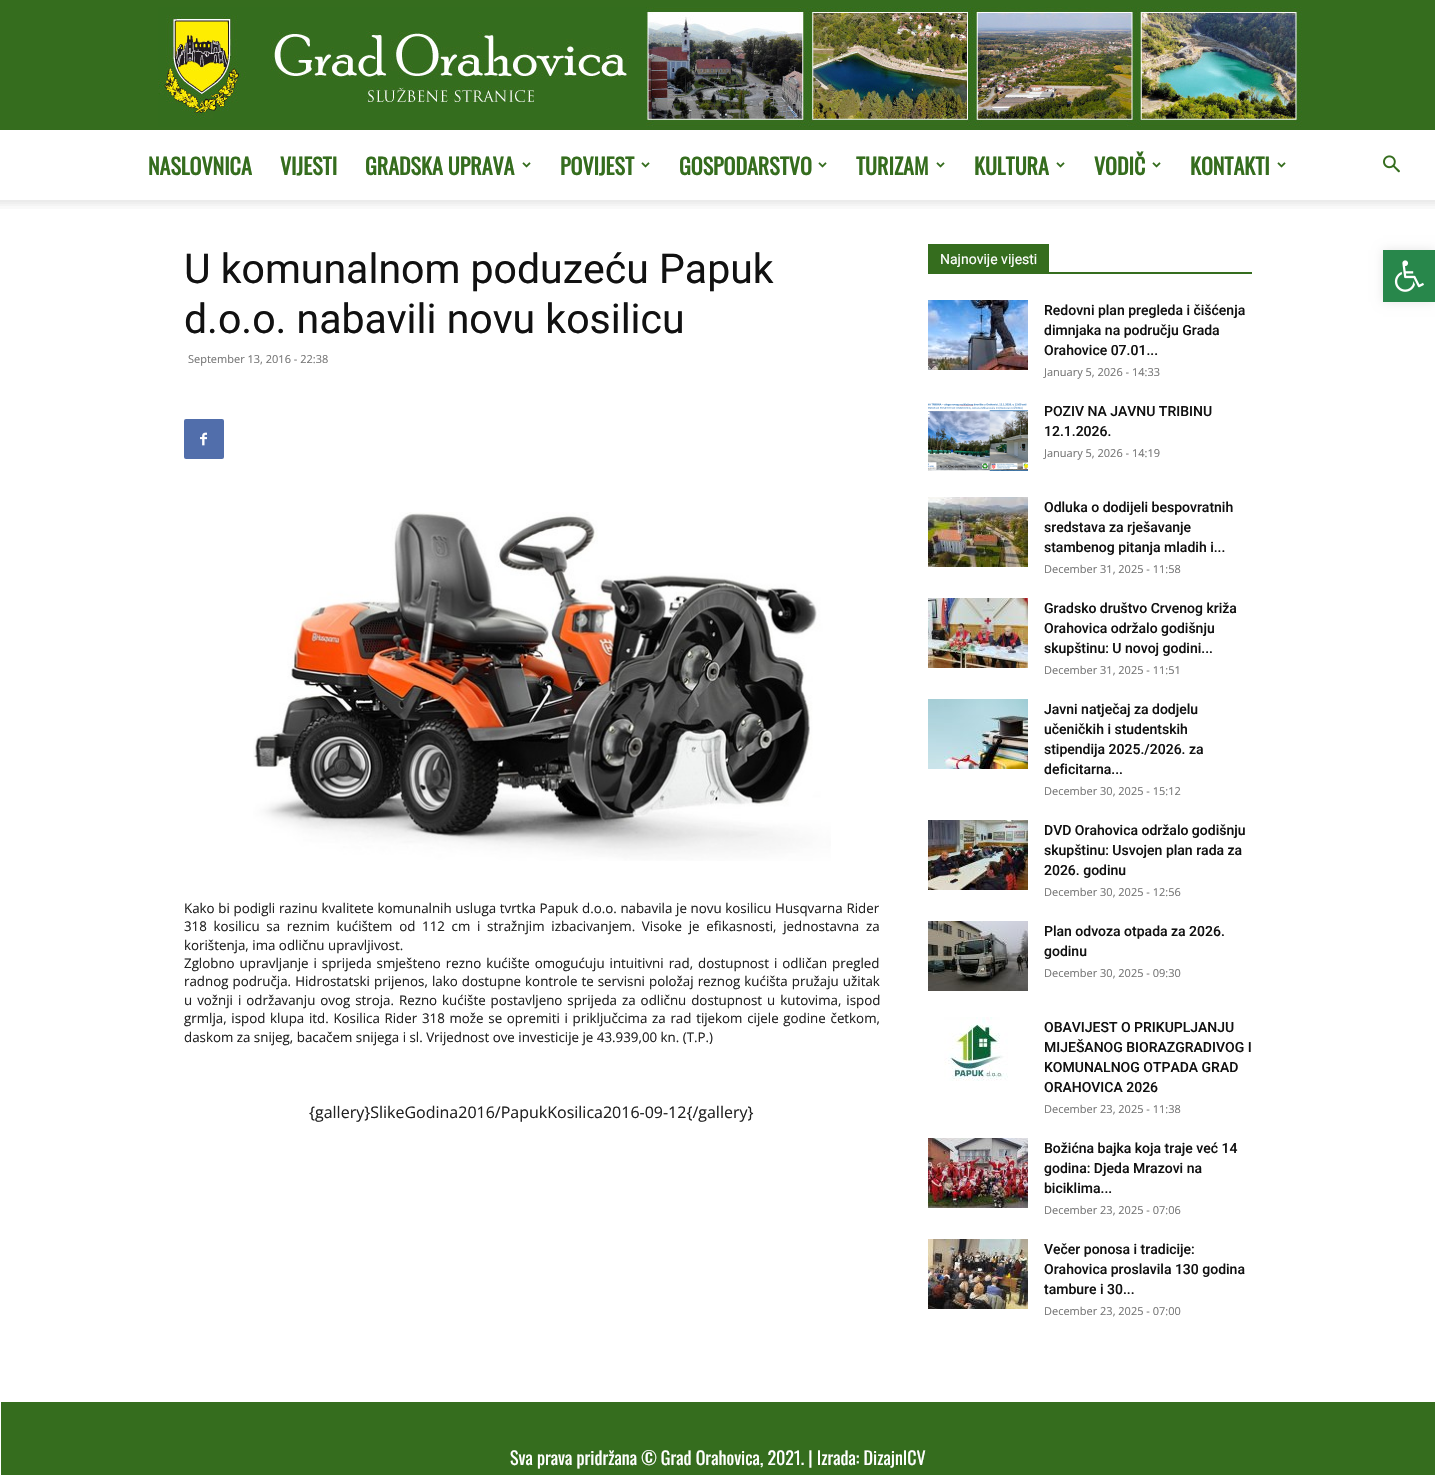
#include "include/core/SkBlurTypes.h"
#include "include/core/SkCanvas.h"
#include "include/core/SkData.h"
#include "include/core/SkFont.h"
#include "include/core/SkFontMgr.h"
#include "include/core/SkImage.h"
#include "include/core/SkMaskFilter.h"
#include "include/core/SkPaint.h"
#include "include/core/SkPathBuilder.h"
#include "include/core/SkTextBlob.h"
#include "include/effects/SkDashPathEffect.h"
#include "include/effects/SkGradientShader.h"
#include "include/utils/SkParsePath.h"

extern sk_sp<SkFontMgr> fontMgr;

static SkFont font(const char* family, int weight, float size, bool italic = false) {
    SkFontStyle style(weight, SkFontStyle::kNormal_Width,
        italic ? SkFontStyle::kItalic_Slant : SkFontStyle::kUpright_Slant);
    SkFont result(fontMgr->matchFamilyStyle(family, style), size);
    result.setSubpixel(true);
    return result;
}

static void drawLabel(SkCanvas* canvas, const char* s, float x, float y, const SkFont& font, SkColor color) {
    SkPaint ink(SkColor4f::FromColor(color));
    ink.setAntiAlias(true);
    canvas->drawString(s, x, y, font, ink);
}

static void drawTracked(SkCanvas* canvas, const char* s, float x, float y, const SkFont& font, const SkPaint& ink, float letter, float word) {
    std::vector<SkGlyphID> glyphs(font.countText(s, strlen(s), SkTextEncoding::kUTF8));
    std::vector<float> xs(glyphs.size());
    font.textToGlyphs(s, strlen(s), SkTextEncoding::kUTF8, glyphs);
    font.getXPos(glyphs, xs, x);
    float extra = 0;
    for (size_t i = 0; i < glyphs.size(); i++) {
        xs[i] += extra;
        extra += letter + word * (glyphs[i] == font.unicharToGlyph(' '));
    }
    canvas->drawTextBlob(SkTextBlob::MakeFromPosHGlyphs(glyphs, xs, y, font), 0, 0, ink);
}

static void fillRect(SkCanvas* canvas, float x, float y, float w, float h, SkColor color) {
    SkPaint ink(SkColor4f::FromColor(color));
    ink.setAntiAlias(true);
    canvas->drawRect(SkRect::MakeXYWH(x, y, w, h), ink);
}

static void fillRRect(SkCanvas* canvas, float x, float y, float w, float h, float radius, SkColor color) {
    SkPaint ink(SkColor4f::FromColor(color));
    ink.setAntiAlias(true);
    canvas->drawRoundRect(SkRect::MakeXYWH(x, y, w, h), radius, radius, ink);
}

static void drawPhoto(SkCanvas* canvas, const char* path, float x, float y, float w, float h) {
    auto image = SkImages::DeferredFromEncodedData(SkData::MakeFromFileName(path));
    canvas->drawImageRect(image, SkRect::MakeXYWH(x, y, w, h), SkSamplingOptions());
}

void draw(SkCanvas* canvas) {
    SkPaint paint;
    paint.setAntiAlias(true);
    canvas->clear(0xFFFFFFFF);
    fillRect(canvas, 0, 0, 1435, 130, 0xFF356D1E);
    drawPhoto(canvas, "assets/img1.png", 158, 7, 1144, 120);
    SkFont font1 = font("Oswald", 700, 22);
    drawLabel(canvas, "NASLOVNICA", 148, 175, font1, 0xFF356D1E);
    drawLabel(canvas, "VIJESTI", 280, 175, font1, 0xFF356D1E);
    drawLabel(canvas, "GRADSKA UPRAVA", 365, 175, font1, 0xFF356D1E);
    drawPhoto(canvas, "assets/img2.png", 522, 162, 9, 6);
    drawLabel(canvas, "POVIJEST", 560, 175, font1, 0xFF356D1E);
    drawPhoto(canvas, "assets/img2.png", 641, 162, 9, 6);
    drawLabel(canvas, "GOSPODARSTVO", 679, 175, font1, 0xFF356D1E);
    drawPhoto(canvas, "assets/img2.png", 818, 162, 9, 6);
    drawLabel(canvas, "TURIZAM", 856, 175, font1, 0xFF356D1E);
    drawPhoto(canvas, "assets/img2.png", 936, 162, 9, 6);
    drawLabel(canvas, "KULTURA", 974, 175, font1, 0xFF356D1E);
    drawPhoto(canvas, "assets/img2.png", 1056, 162, 9, 6);
    drawLabel(canvas, "VODIČ", 1094, 175, font1, 0xFF356D1E);
    drawPhoto(canvas, "assets/img2.png", 1152, 162, 9, 6);
    drawLabel(canvas, "KONTAKTI", 1190, 175, font1, 0xFF356D1E);
    drawPhoto(canvas, "assets/img2.png", 1277, 162, 9, 6);
    drawPhoto(canvas, "assets/img3.png", 1383, 155, 17, 18);
    drawPhoto(canvas, "assets/img4.png", 0, 200, 1435, 9);
    SkFont font2 = font("Roboto", 400, 41);
    drawLabel(canvas, "U komunalnom poduzeću Papuk", 184, 283, font2, 0xFF111111);
    drawLabel(canvas, "d.o.o. nabavili novu kosilicu", 184, 333, font2, 0xFF111111);
    SkFont font3 = font("Open Sans", 400, 11);
    drawLabel(canvas, "September 13, 2016 - 22:38", 188, 363, font3, 0xFF767676);
    fillRRect(canvas, 184, 419, 40, 40, 2, 0xFF516EAB);
    drawPhoto(canvas, "assets/img5.png", 200, 432, 7, 14);
    drawPhoto(canvas, "assets/img6.png", 253, 512, 578, 349);
    SkFont font4 = font("Open Sans", 400, 13.33f);
    paint.setColor(0xFF222222);
    drawTracked(canvas, "Kako bi podigli razinu kvalitete komunalnih usluga tvrtka Papuk d.o.o. nabavila je novu kosilicu Husqvarna Rider", 184, 913, font4, paint, 0, 0.25f);
    drawTracked(canvas, "318 kosilicu sa reznim kućištem od 112 cm i stražnjim izbacivanjem. Visoke je efikasnosti, jednostavna za", 184, 931, font4, paint, 0, 3.25f);
    drawLabel(canvas, "korištenja, ima odličnu upravljivost.", 184, 950, font4, 0xFF222222);
    drawTracked(canvas, "Zglobno upravljanje i sprijeda smješteno rezno kućište omogućuju intuitivni rad, dostupnost i odličan pregled", 184, 968, font4, paint, 0, 1.5f);
    drawTracked(canvas, "radnog područja. Hidrostatski prijenos, lako dostupne kontrole te servisni položaj reznog kućišta pružaju užitak", 184, 986, font4, paint, 0, 0.6f);
    drawTracked(canvas, "u vožnji i održavanju ovog stroja. Rezno kućište postavljeno sprijeda za odličnu dostupnost u kutovima, ispod", 184, 1005, font4, paint, 0, 1.5f);
    drawTracked(canvas, "grmlja, ispod klupa itd. Kosilica Rider 318 može se opremiti i priključcima za rad tijekom cijele godine četkom,", 184, 1023, font4, paint, 0, 1.25f);
    drawLabel(canvas, "daskom za snijeg, bacačem snijega i sl. Vrijednost ove investicije je 43.939,00 kn. (T.P.)", 184, 1042, font4, 0xFF222222);
    SkFont font5 = font("Open Sans", 400, 16);
    drawLabel(canvas, "{gallery}SlikeGodina2016/PapukKosilica2016-09-12{/gallery}", 309, 1118, font5, 0xFF222222);
    fillRect(canvas, 928, 272, 324, 2, 0xFF356D1E);
    fillRect(canvas, 928, 244, 121, 28, 0xFF356D1E);
    SkFont font6 = font("Roboto", 400, 14);
    drawLabel(canvas, "Najnovije vijesti", 940, 264, font6, 0xFFFFFFFF);
    drawPhoto(canvas, "assets/img7.png", 928, 300, 100, 70);
    SkFont font7 = font("Roboto", 500, 14);
    drawLabel(canvas, "Redovni plan pregleda i čišćenja", 1044, 315, font7, 0xFF111111);
    drawLabel(canvas, "dimnjaka na području Grada", 1044, 335, font7, 0xFF111111);
    drawLabel(canvas, "Orahovice 07.01...", 1044, 355, font7, 0xFF111111);
    drawLabel(canvas, "January 5, 2026 - 14:33", 1044, 376, font3, 0xFF767676);
    drawPhoto(canvas, "assets/img8.png", 928, 403, 100, 68);
    drawLabel(canvas, "POZIV NA JAVNU TRIBINU", 1044, 416, font7, 0xFF111111);
    drawLabel(canvas, "12.1.2026.", 1044, 436, font7, 0xFF111111);
    drawLabel(canvas, "January 5, 2026 - 14:19", 1044, 457, font3, 0xFF767676);
    drawPhoto(canvas, "assets/img9.png", 928, 497, 100, 70);
    drawLabel(canvas, "Odluka o dodijeli bespovratnih", 1044, 512, font7, 0xFF111111);
    drawLabel(canvas, "sredstava za rješavanje", 1044, 532, font7, 0xFF111111);
    drawLabel(canvas, "stambenog pitanja mladih i...", 1044, 552, font7, 0xFF111111);
    drawLabel(canvas, "December 31, 2025 - 11:58", 1044, 573, font3, 0xFF767676);
    drawPhoto(canvas, "assets/img10.png", 928, 598, 100, 70);
    drawLabel(canvas, "Gradsko društvo Crvenog križa", 1044, 613, font7, 0xFF111111);
    drawLabel(canvas, "Orahovica održalo godišnju", 1044, 633, font7, 0xFF111111);
    drawLabel(canvas, "skupštinu: U novoj godini...", 1044, 653, font7, 0xFF111111);
    drawLabel(canvas, "December 31, 2025 - 11:51", 1044, 674, font3, 0xFF767676);
    drawPhoto(canvas, "assets/img11.png", 928, 699, 100, 70);
    drawLabel(canvas, "Javni natječaj za dodjelu", 1044, 714, font7, 0xFF111111);
    drawLabel(canvas, "učeničkih i studentskih", 1044, 734, font7, 0xFF111111);
    drawLabel(canvas, "stipendija 2025./2026. za", 1044, 754, font7, 0xFF111111);
    drawLabel(canvas, "deficitarna...", 1044, 774, font7, 0xFF111111);
    drawLabel(canvas, "December 30, 2025 - 15:12", 1044, 795, font3, 0xFF767676);
    drawPhoto(canvas, "assets/img12.png", 928, 820, 100, 70);
    drawLabel(canvas, "DVD Orahovica održalo godišnju", 1044, 835, font7, 0xFF111111);
    drawLabel(canvas, "skupštinu: Usvojen plan rada za", 1044, 855, font7, 0xFF111111);
    drawLabel(canvas, "2026. godinu", 1044, 875, font7, 0xFF111111);
    drawLabel(canvas, "December 30, 2025 - 12:56", 1044, 896, font3, 0xFF767676);
    drawPhoto(canvas, "assets/img13.png", 928, 921, 100, 70);
    drawLabel(canvas, "Plan odvoza otpada za 2026.", 1044, 936, font7, 0xFF111111);
    drawLabel(canvas, "godinu", 1044, 956, font7, 0xFF111111);
    drawLabel(canvas, "December 30, 2025 - 09:30", 1044, 977, font3, 0xFF767676);
    drawPhoto(canvas, "assets/img14.png", 944, 1017, 64, 64);
    drawLabel(canvas, "OBAVIJEST O PRIKUPLJANJU", 1044, 1032, font7, 0xFF111111);
    drawLabel(canvas, "MIJEŠANOG BIORAZGRADIVOG I", 1044, 1052, font7, 0xFF111111);
    drawLabel(canvas, "KOMUNALNOG OTPADA GRAD", 1044, 1072, font7, 0xFF111111);
    drawLabel(canvas, "ORAHOVICA 2026", 1044, 1092, font7, 0xFF111111);
    drawLabel(canvas, "December 23, 2025 - 11:38", 1044, 1113, font3, 0xFF767676);
    drawPhoto(canvas, "assets/img15.png", 928, 1138, 100, 70);
    drawLabel(canvas, "Božićna bajka koja traje već 14", 1044, 1153, font7, 0xFF111111);
    drawLabel(canvas, "godina: Djeda Mrazovi na", 1044, 1173, font7, 0xFF111111);
    drawLabel(canvas, "biciklima...", 1044, 1193, font7, 0xFF111111);
    drawLabel(canvas, "December 23, 2025 - 07:06", 1044, 1214, font3, 0xFF767676);
    drawPhoto(canvas, "assets/img16.png", 928, 1239, 100, 70);
    drawLabel(canvas, "Večer ponosa i tradicije:", 1044, 1254, font7, 0xFF111111);
    drawLabel(canvas, "Orahovica proslavila 130 godina", 1044, 1274, font7, 0xFF111111);
    drawLabel(canvas, "tambure i 30...", 1044, 1294, font7, 0xFF111111);
    drawLabel(canvas, "December 23, 2025 - 07:00", 1044, 1315, font3, 0xFF767676);
    fillRect(canvas, 1, 1402, 1434, 73, 0xFF356D1E);
    SkFont font8 = font("Oswald", 400, 18);
    drawLabel(canvas, "Sva prava pridržana © Grad Orahovica, 2021. | Izrada: DizajnICV", 510, 1465, font8, 0xFFFFFFFF);
    paint.setColor(0x1A000000);
    paint.setMaskFilter(SkMaskFilter::MakeBlur(kNormal_SkBlurStyle, 5));
    canvas->drawRect(SkRect::MakeXYWH(1383, 250, 52, 52), paint);
    paint.setMaskFilter(nullptr);
    fillRect(canvas, 1383, 250, 52, 52, 0xFF28874B);
    drawPhoto(canvas, "assets/img17.png", 1394, 260, 30, 32);
}
